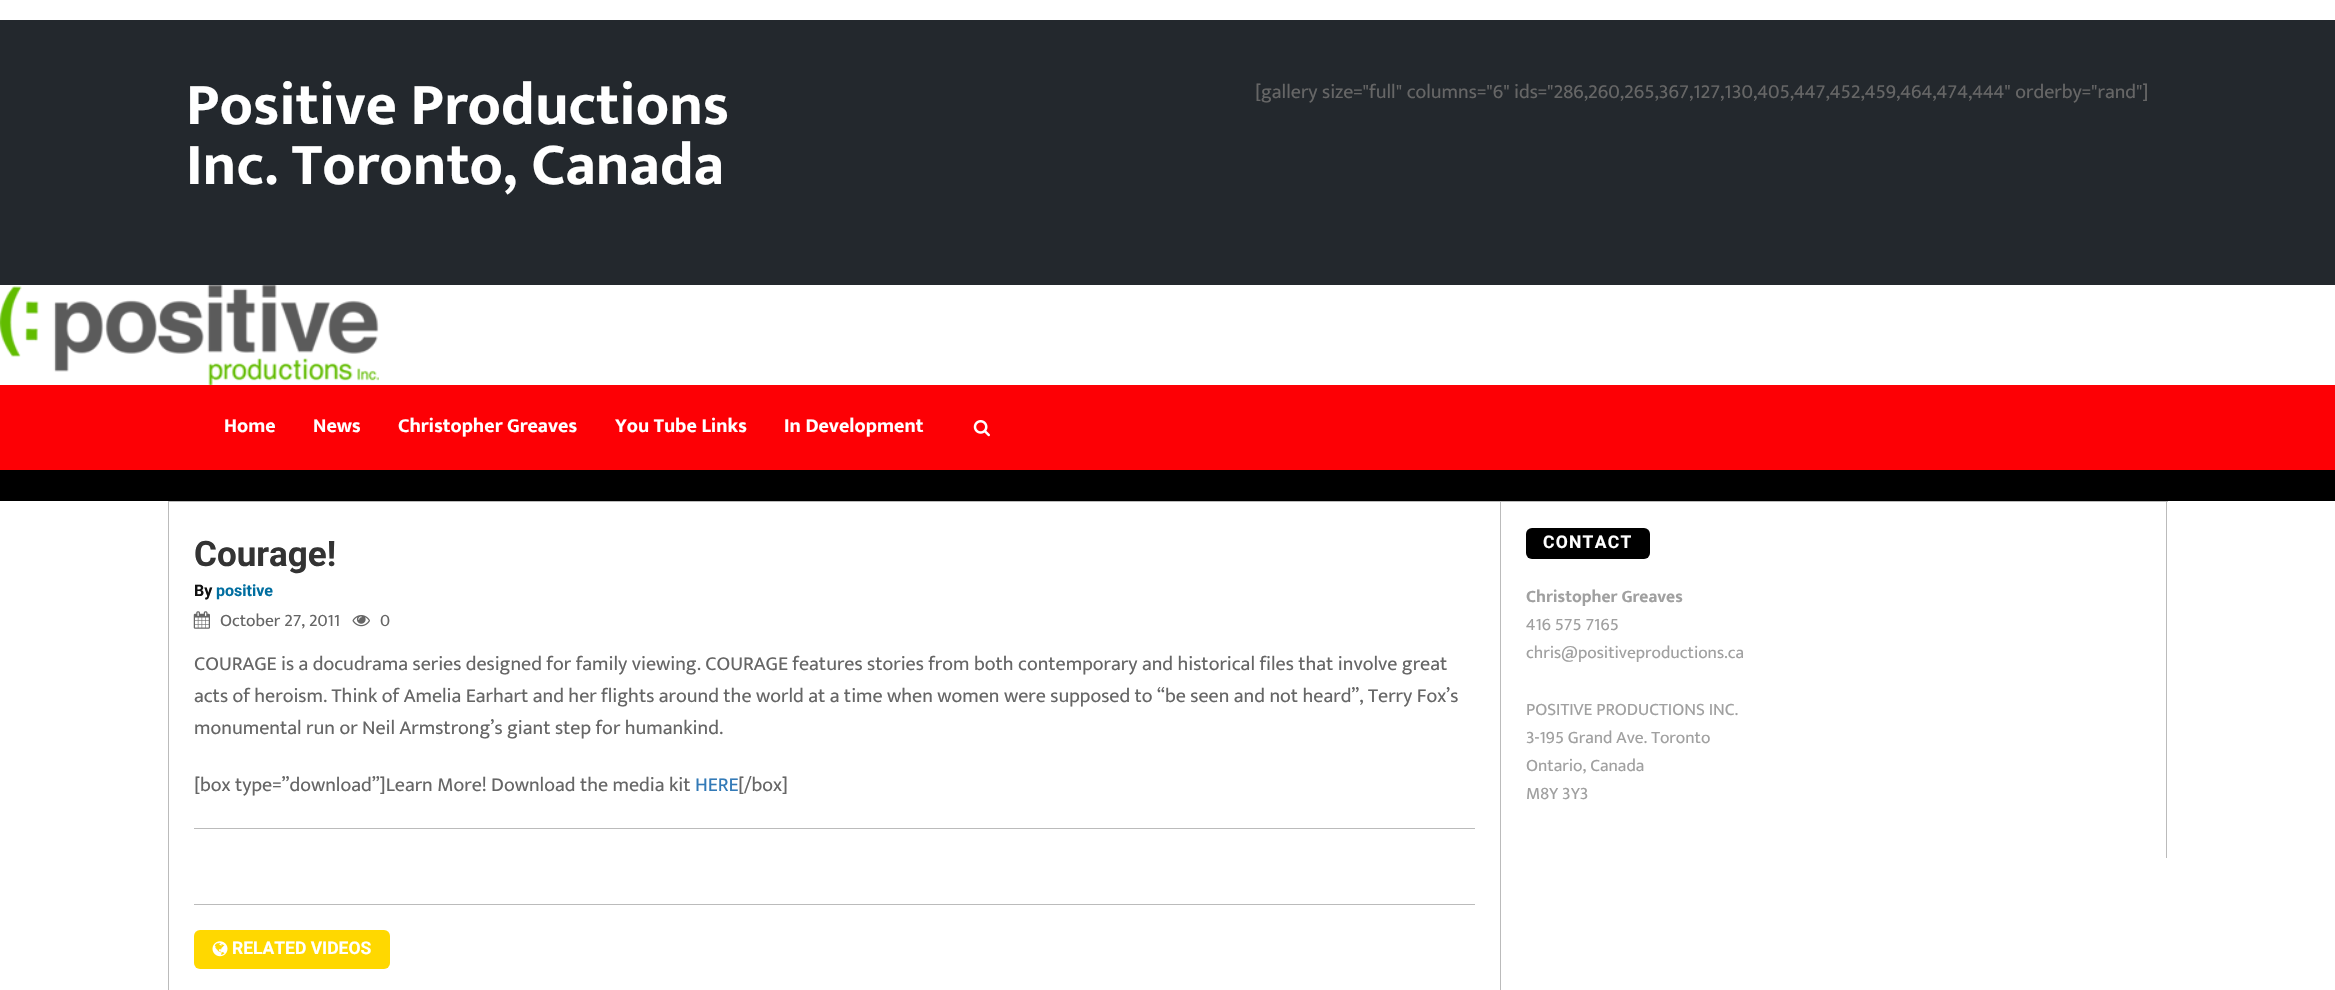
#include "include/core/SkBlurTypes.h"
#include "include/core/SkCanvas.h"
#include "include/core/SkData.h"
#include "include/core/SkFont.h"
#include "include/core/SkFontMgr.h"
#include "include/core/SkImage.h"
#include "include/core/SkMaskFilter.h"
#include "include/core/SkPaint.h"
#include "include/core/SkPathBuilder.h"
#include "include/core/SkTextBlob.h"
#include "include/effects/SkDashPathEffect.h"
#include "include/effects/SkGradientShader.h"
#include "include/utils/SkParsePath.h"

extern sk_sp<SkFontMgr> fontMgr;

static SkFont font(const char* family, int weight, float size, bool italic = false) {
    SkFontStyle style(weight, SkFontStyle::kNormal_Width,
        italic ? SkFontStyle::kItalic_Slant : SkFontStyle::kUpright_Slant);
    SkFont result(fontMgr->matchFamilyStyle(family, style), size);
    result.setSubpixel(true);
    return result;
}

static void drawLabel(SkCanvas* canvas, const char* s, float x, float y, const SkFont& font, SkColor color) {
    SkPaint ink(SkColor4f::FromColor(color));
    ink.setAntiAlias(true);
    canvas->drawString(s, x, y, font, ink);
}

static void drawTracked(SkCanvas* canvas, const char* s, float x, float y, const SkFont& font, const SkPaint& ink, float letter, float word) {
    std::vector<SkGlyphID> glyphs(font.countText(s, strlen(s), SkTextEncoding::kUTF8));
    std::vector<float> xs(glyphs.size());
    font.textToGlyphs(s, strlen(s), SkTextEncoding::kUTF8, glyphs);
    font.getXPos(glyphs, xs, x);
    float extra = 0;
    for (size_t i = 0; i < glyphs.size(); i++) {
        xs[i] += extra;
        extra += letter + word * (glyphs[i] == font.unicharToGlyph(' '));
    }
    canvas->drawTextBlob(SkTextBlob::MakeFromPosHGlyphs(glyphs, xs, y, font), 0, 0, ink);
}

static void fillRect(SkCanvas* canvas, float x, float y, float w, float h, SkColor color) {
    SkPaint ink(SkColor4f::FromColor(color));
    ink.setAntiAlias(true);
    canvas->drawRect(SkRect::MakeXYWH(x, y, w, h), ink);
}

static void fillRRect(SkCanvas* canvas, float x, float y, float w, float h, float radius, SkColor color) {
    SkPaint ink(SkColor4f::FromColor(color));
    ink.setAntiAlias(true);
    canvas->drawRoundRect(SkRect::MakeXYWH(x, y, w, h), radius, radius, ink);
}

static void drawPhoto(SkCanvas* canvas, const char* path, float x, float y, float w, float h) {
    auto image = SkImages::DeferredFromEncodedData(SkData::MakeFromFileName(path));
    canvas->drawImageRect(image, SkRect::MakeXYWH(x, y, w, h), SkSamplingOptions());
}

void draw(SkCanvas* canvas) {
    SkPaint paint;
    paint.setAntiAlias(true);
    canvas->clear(0xFFFFFFFF);
    fillRect(canvas, 0, 20, 2335, 265, 0xFF23282D);
    SkFont font1 = font("Mukta", 700, 60);
    drawLabel(canvas, "Positive Productions", 186, 124, font1, 0xFFFFFFFF);
    drawLabel(canvas, "Inc. Toronto, Canada", 186, 184, font1, 0xFFFFFFFF);
    SkFont font2 = font("Mukta", 400, 20);
    drawLabel(canvas, "[gallery size=\"full\" columns=\"6\" ids=\"286,260,265,367,127,130,405,447,452,459,464,474,444\" orderby=\"rand\"]", 1255, 98, font2, 0xFF666666);
    drawPhoto(canvas, "assets/img1.png", 0, 285, 379, 100);
    fillRect(canvas, 0, 385, 2335, 85, 0xFFFD0005);
    SkFont font3 = font("Mukta", 700, 20);
    drawLabel(canvas, "Home", 224, 432, font3, 0xFFFFFFFF);
    drawLabel(canvas, "News", 313, 432, font3, 0xFFFFFFFF);
    drawLabel(canvas, "Christopher Greaves", 398, 432, font3, 0xFFFFFFFF);
    drawLabel(canvas, "You Tube Links", 615, 432, font3, 0xFFFFFFFF);
    drawLabel(canvas, "In Development", 784, 432, font3, 0xFFFFFFFF);
    drawPhoto(canvas, "assets/img2.png", 973, 420, 17, 17);
    fillRect(canvas, 0, 470, 2335, 31, 0xFF000000);
    fillRect(canvas, 168, 501, 2000, 1, 0xFFBBBBBB);
    fillRect(canvas, 1500, 501, 1, 489, 0xFFBBBBBB);
    fillRect(canvas, 168, 501, 1, 489, 0xFFBBBBBB);
    SkFont font4 = font("Roboto", 700, 35);
    drawLabel(canvas, "Courage!", 194, 566, font4, 0xFF333333);
    SkFont font5 = font("Roboto", 700, 16);
    drawLabel(canvas, "By", 194, 596, font5, 0xFF111111);
    drawLabel(canvas, "positive", 216, 596, font5, 0xFF006EA0);
    drawPhoto(canvas, "assets/img3.png", 193, 611, 17, 18);
    SkFont font6 = font("Mukta", 400, 17.5f);
    drawLabel(canvas, "October 27, 2011", 220, 626, font6, 0xFF666666);
    drawPhoto(canvas, "assets/img4.png", 352, 615, 18, 12);
    drawLabel(canvas, "0", 380, 626, font6, 0xFF666666);
    drawLabel(canvas, "COURAGE is a docudrama series designed for family viewing. COURAGE features stories from both contemporary and historical files that involve great", 194, 670, font2, 0xFF666666);
    drawLabel(canvas, "acts of heroism. Think of Amelia Earhart and her flights around the world at a time when women were supposed to “be seen and not heard”, Terry Fox’s", 194, 702, font2, 0xFF666666);
    drawLabel(canvas, "monumental run or Neil Armstrong’s giant step for humankind.", 194, 734, font2, 0xFF666666);
    drawLabel(canvas, "[box type=”download”]Learn More! Download the media kit", 194, 791, font2, 0xFF666666);
    drawLabel(canvas, "HERE", 695, 791, font2, 0xFF337AB7);
    drawLabel(canvas, "[/box]", 738, 791, font2, 0xFF666666);
    fillRect(canvas, 194, 828, 1281, 1, 0xFFBBBBBB);
    fillRect(canvas, 194, 904, 1281, 1, 0xFFBBBBBB);
    fillRRect(canvas, 194, 930, 196, 39, 6, 0xFFFFD800);
    drawPhoto(canvas, "assets/img5.png", 212, 941, 16, 16);
    SkFont font7 = font("Roboto", 700, 17.5f);
    drawLabel(canvas, "RELATED VIDEOS", 232, 954, font7, 0xFFFFFFFF);
    fillRect(canvas, 2166, 501, 1, 357, 0xFFBBBBBB);
    fillRRect(canvas, 1526, 528, 124, 31, 6, 0xFF000000);
    paint.setColor(0xFFFFFFFF);
    drawTracked(canvas, "CONTACT", 1543, 548, font7, paint, 1.25f, 0);
    SkFont font8 = font("Mukta", 700, 17.5f);
    drawLabel(canvas, "Christopher Greaves", 1526, 602, font8, 0xFFA0A0A0);
    drawLabel(canvas, "416 575 7165", 1526, 630, font6, 0xFFA0A0A0);
    drawLabel(canvas, "chris@positiveproductions.ca", 1526, 658, font6, 0xFFA0A0A0);
    drawLabel(canvas, "POSITIVE PRODUCTIONS INC.", 1526, 715, font6, 0xFFA0A0A0);
    drawLabel(canvas, "3-195 Grand Ave. Toronto", 1526, 743, font6, 0xFFA0A0A0);
    drawLabel(canvas, "Ontario, Canada", 1526, 771, font6, 0xFFA0A0A0);
    drawLabel(canvas, "M8Y 3Y3", 1526, 799, font6, 0xFFA0A0A0);
}
